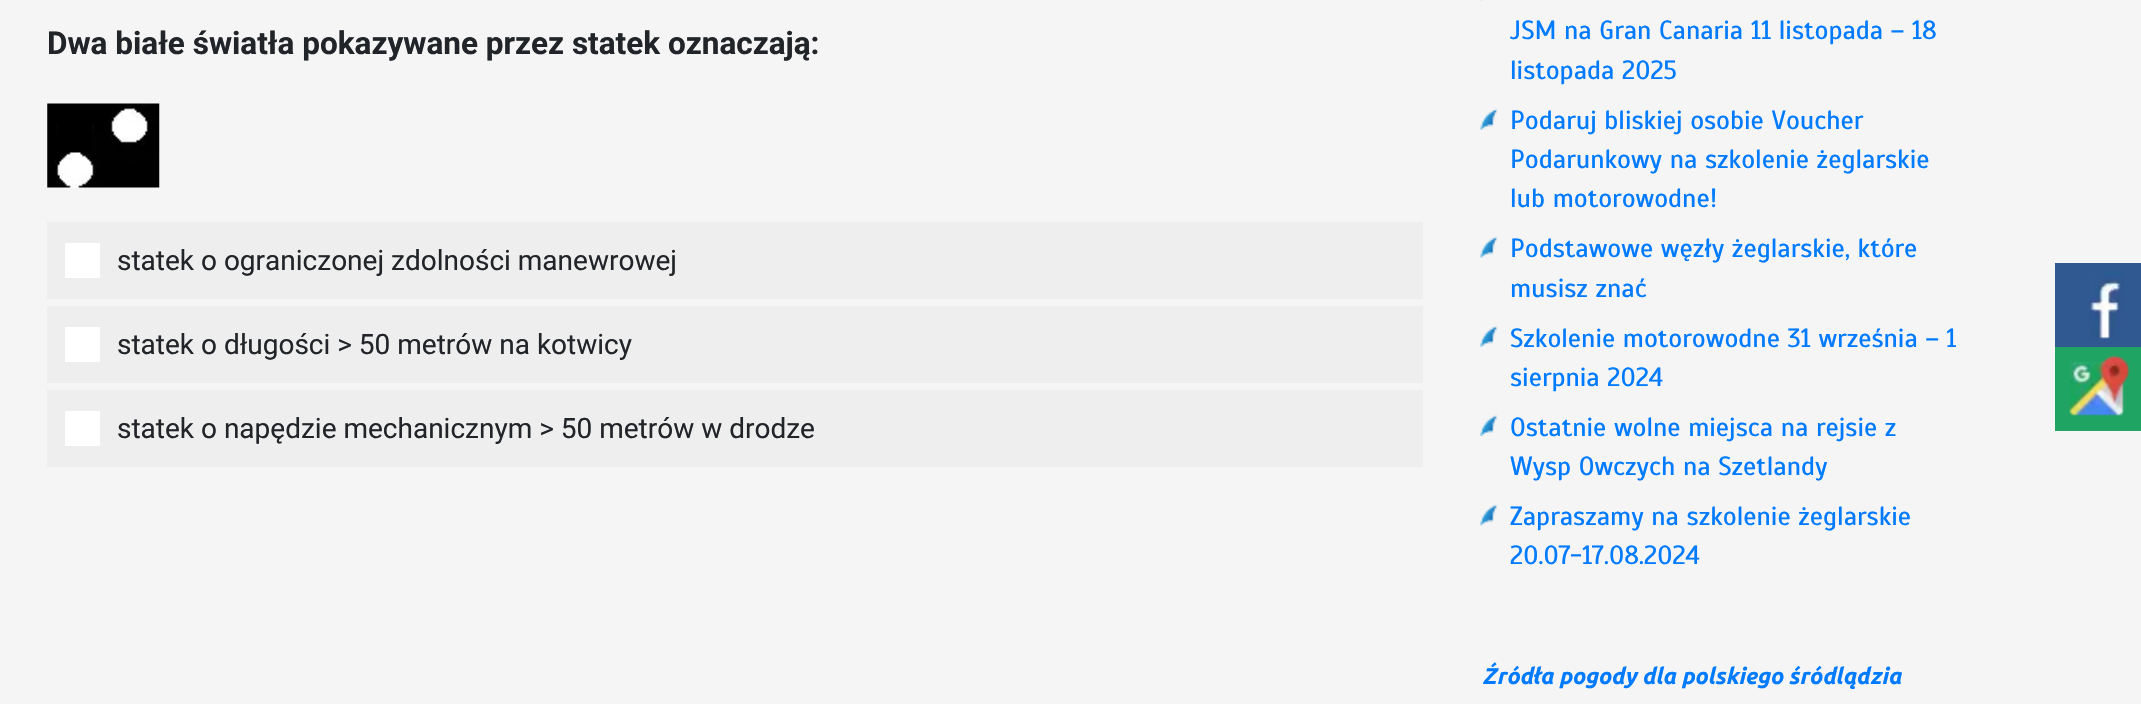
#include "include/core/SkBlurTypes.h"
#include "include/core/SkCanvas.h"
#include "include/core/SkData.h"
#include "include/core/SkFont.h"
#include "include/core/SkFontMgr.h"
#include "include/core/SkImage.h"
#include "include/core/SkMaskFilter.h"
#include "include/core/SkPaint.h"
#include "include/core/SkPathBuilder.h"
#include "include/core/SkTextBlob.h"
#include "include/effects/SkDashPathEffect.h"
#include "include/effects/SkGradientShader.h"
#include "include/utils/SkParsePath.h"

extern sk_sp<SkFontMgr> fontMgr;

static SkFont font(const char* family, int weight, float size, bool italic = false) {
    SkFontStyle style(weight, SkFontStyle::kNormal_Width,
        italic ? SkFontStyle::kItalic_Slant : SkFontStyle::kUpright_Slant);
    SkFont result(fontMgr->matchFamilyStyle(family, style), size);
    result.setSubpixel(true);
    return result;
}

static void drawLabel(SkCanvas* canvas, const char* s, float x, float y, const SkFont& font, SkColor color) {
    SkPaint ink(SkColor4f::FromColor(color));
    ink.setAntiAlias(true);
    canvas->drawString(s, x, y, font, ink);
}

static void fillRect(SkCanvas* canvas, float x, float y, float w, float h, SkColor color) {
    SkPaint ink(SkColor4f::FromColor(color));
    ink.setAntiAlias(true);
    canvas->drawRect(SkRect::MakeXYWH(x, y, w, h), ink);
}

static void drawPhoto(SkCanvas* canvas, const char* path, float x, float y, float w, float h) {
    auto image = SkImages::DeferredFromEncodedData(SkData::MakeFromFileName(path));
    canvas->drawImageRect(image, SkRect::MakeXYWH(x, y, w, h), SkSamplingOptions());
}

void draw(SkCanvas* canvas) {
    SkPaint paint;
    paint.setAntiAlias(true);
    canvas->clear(0xFFF5F5F5);
    SkFont font1 = font("Roboto", 700, 31.5f);
    drawLabel(canvas, "Dwa białe światła pokazywane przez statek oznaczają:", 47, 54, font1, 0xFF212529);
    drawPhoto(canvas, "assets/img1.png", 47, 103, 113, 85);
    fillRect(canvas, 47, 222, 1376, 77, 0xFFEEEEEE);
    fillRect(canvas, 65, 243, 35, 35, 0xFFFFFFFF);
    SkFont font2 = font("Roboto", 400, 28);
    drawLabel(canvas, "statek o ograniczonej zdolności manewrowej", 117, 270, font2, 0xFF212529);
    fillRect(canvas, 47, 306, 1376, 77, 0xFFEEEEEE);
    fillRect(canvas, 65, 327, 35, 35, 0xFFFFFFFF);
    drawLabel(canvas, "statek o długości > 50 metrów na kotwicy", 117, 354, font2, 0xFF212529);
    fillRect(canvas, 47, 390, 1376, 77, 0xFFEEEEEE);
    fillRect(canvas, 65, 411, 35, 35, 0xFFFFFFFF);
    drawLabel(canvas, "statek o napędzie mechanicznym > 50 metrów w drodze", 117, 438, font2, 0xFF212529);
    drawPhoto(canvas, "assets/img2.png", 1480, 0, 3, 1);
    SkFont font3 = font("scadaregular", 400, 26.25f);
    drawLabel(canvas, "JSM na Gran Canaria 11 listopada – 18", 1510, 39, font3, 0xFF007BFF);
    drawLabel(canvas, "listopada 2025", 1510, 79, font3, 0xFF007BFF);
    drawPhoto(canvas, "assets/img3.png", 1480, 108, 18, 22);
    drawLabel(canvas, "Podaruj bliskiej osobie Voucher", 1510, 129, font3, 0xFF007BFF);
    drawLabel(canvas, "Podarunkowy na szkolenie żeglarskie", 1510, 168, font3, 0xFF007BFF);
    drawLabel(canvas, "lub motorowodne!", 1510, 207, font3, 0xFF007BFF);
    drawPhoto(canvas, "assets/img4.png", 1480, 236, 18, 22);
    drawLabel(canvas, "Podstawowe węzły żeglarskie, które", 1510, 257, font3, 0xFF007BFF);
    drawLabel(canvas, "musisz znać", 1510, 297, font3, 0xFF007BFF);
    drawPhoto(canvas, "assets/img3.png", 1480, 325, 18, 22);
    drawLabel(canvas, "Szkolenie motorowodne 31 września – 1", 1510, 347, font3, 0xFF007BFF);
    drawLabel(canvas, "sierpnia 2024", 1510, 386, font3, 0xFF007BFF);
    drawPhoto(canvas, "assets/img5.png", 1480, 415, 18, 21);
    drawLabel(canvas, "Ostatnie wolne miejsca na rejsie z", 1510, 436, font3, 0xFF007BFF);
    drawLabel(canvas, "Wysp Owczych na Szetlandy", 1510, 475, font3, 0xFF007BFF);
    drawPhoto(canvas, "assets/img6.png", 1480, 504, 18, 22);
    drawLabel(canvas, "Zapraszamy na szkolenie żeglarskie", 1510, 525, font3, 0xFF007BFF);
    drawLabel(canvas, "20.07-17.08.2024", 1510, 564, font3, 0xFF007BFF);
    SkFont font4 = font("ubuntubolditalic", 700, 22.75f, true);
    drawLabel(canvas, "Źródła pogody dla polskiego śródlądzia", 1482, 684, font4, 0xFF007BFF);
    fillRect(canvas, 2055, 263, 86, 84, 0xFF305891);
    drawPhoto(canvas, "assets/img7.png", 2089, 271, 35, 68);
    fillRect(canvas, 2055, 347, 86, 84, 0xFF20A464);
    drawPhoto(canvas, "assets/img8.png", 2069, 355, 61, 62);
}
